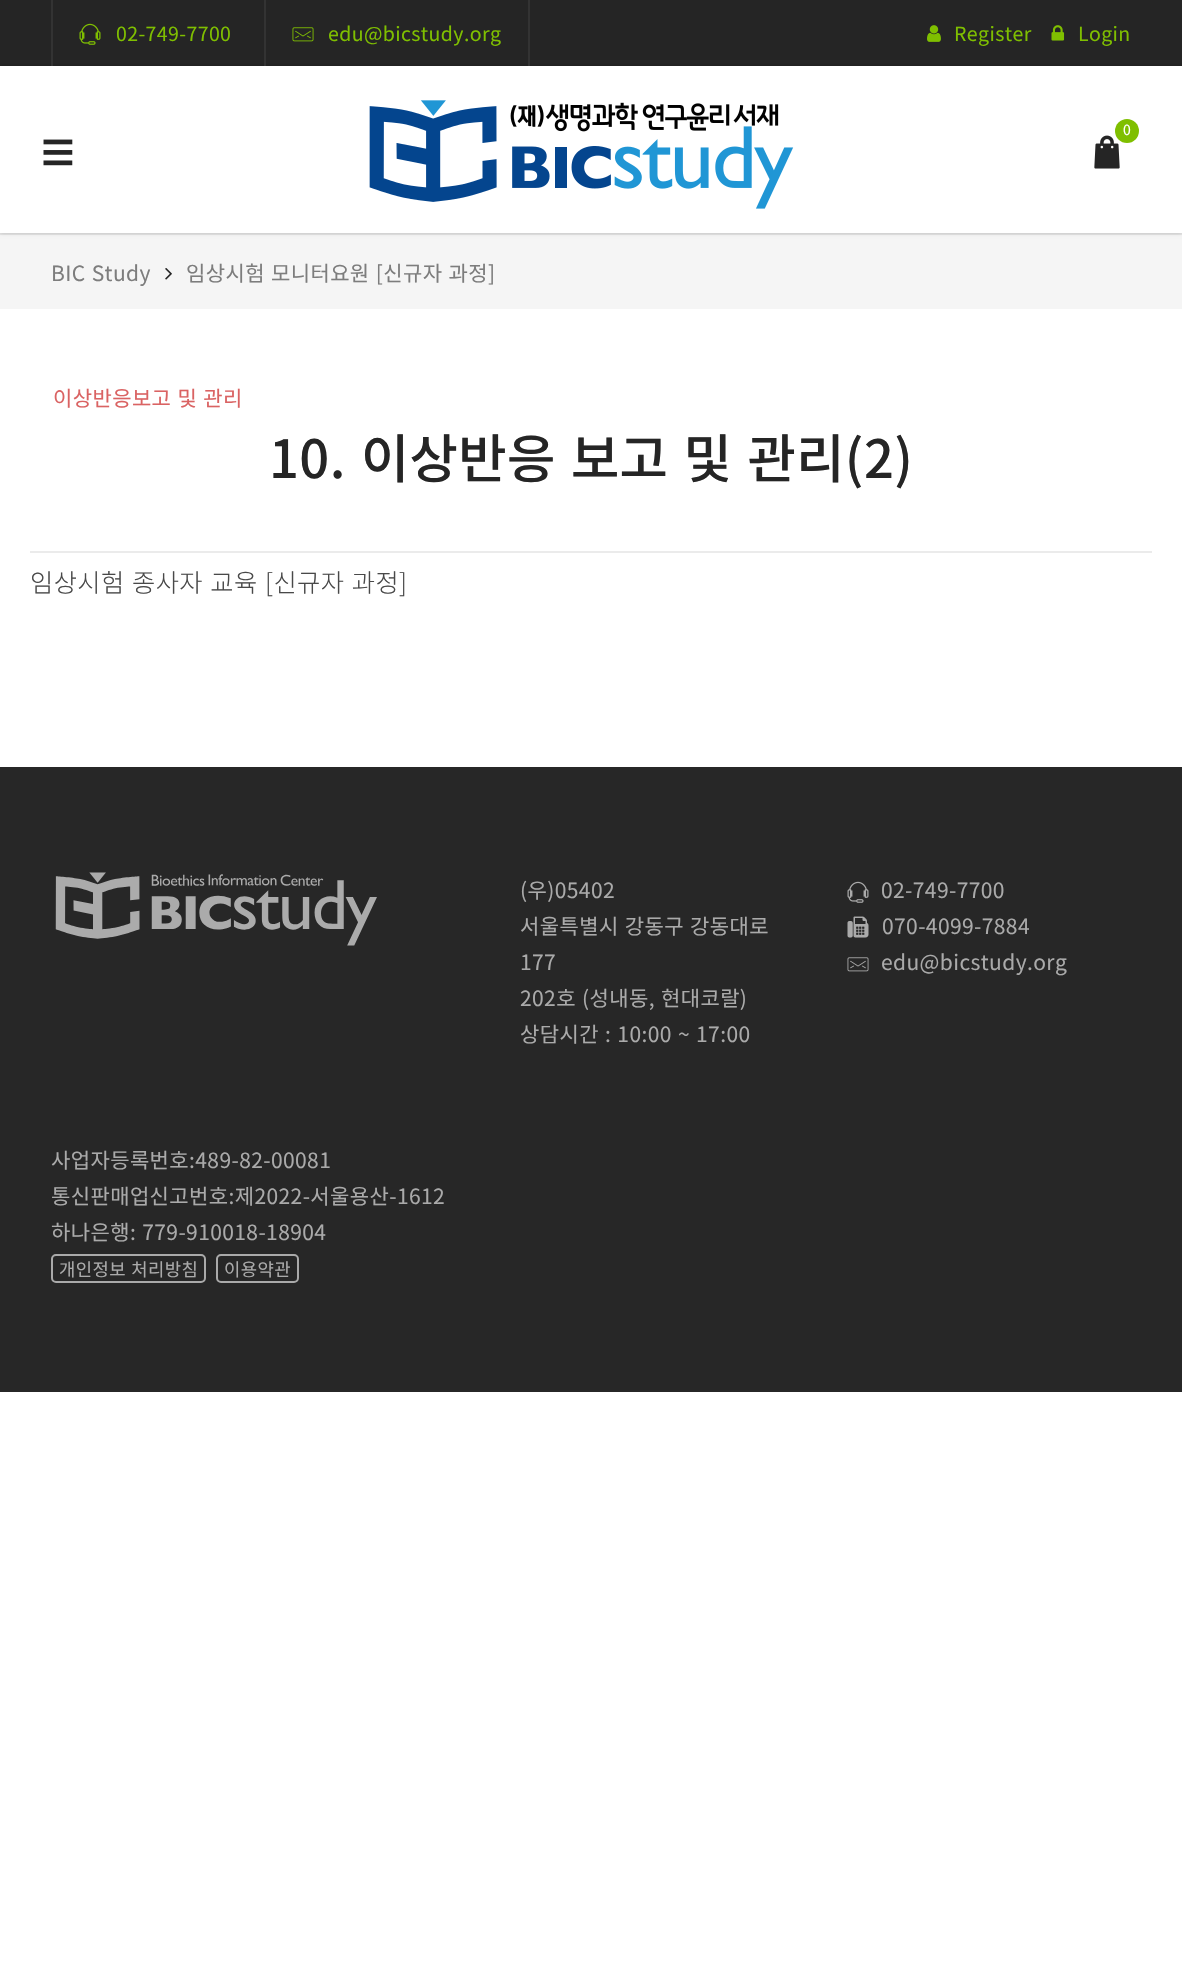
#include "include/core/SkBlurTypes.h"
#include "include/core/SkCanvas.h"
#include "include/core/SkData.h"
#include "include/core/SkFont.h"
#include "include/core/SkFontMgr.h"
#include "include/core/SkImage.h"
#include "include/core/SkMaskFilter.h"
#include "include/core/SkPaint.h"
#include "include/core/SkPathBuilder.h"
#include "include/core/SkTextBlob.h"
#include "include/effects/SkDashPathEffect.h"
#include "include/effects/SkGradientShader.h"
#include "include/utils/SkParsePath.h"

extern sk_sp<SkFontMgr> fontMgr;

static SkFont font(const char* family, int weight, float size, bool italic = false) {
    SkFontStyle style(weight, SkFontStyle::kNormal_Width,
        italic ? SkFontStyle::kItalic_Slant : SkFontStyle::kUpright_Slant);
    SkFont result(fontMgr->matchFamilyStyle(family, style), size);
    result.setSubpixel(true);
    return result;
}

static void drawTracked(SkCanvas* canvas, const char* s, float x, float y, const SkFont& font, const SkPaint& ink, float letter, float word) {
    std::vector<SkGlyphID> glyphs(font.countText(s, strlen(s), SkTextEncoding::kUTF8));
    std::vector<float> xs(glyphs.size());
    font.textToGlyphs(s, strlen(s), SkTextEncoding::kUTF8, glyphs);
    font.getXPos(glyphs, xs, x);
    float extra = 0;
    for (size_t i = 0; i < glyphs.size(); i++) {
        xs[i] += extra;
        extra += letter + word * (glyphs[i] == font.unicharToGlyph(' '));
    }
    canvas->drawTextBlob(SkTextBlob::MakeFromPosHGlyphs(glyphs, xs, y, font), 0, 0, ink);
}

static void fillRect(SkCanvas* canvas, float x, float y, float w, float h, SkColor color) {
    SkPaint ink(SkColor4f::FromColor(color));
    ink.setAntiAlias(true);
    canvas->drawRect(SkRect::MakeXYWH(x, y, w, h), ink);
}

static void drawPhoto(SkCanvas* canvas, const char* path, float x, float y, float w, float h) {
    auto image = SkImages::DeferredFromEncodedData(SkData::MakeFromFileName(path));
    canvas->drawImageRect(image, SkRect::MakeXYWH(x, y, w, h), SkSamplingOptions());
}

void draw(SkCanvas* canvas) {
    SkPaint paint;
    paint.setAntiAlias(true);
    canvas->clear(0xFFFFFFFF);
    fillRect(canvas, 0, 233, 1182, 2, 0xFFE6E6E6);
    fillRect(canvas, 0, 0, 1182, 66, 0xFF252525);
    fillRect(canvas, 0, 235, 1182, 74, 0xFFF5F5F5);
    paint.setColor(0x33000000);
    paint.setMaskFilter(SkMaskFilter::MakeBlur(kNormal_SkBlurStyle, 2));
    canvas->drawRect(SkRect::MakeXYWH(0, 66, 1182, 167), paint);
    paint.setMaskFilter(nullptr);
    fillRect(canvas, 51, 0, 2, 66, 0xFF333333);
    drawPhoto(canvas, "assets/img1.png", 79, 23, 22, 22);
    SkFont font1 = font("Noto Sans KR", 400, 19.5f);
    paint.setColor(0xFF7FBF00);
    drawTracked(canvas, "02-749-7700", 116, 41, font1, paint, 0.4f, 0);
    fillRect(canvas, 528, 0, 2, 66, 0xFF333333);
    fillRect(canvas, 264, 0, 2, 66, 0xFF333333);
    drawPhoto(canvas, "assets/img2.png", 292, 27, 22, 15);
    drawTracked(canvas, "edu@bicstudy.org", 328, 41, font1, paint, 0.4f, 0);
    drawPhoto(canvas, "assets/img3.png", 927, 25, 14, 17);
    drawTracked(canvas, "Register", 954, 41, font1, paint, 0.4f, 0);
    drawPhoto(canvas, "assets/img4.png", 1051, 25, 14, 16);
    drawTracked(canvas, "Login", 1078, 41, font1, paint, 0.4f, 0);
    fillRect(canvas, 0, 66, 1182, 167, 0xFFFFFFFF);
    drawPhoto(canvas, "assets/img5.png", 369, 100, 425, 109);
    drawPhoto(canvas, "assets/img6.png", 1094, 135, 26, 34);
    canvas->drawCircle(1127, 131, 12, paint);
    SkFont font2 = font("Noto Sans KR", 400, 14);
    paint.setColor(0xFFFFFFFF);
    drawTracked(canvas, "0", 1123, 135, font2, paint, 0.4f, 0);
    drawPhoto(canvas, "assets/img7.png", 43, 139, 30, 27);
    SkFont font3 = font("Noto Sans KR", 400, 21);
    paint.setColor(0xFF7D7D7D);
    drawTracked(canvas, "BIC Study", 51, 281, font3, paint, 0.4f, 1);
    drawPhoto(canvas, "assets/img8.png", 165, 268, 7, 12);
    drawTracked(canvas, "임상시험 모니터요원 [신규자 과정]", 186, 281, font3, paint, 0.4f, 1);
    fillRect(canvas, 30, 551, 1122, 2, 0xFFEBEBEB);
    paint.setColor(0xFFDA6363);
    drawTracked(canvas, "이상반응보고 및 관리", 53, 406, font3, paint, 0.4f, 1);
    SkFont font4 = font("Noto Sans KR", 500, 52.5f);
    paint.setColor(0xFF252525);
    drawTracked(canvas, "10. 이상반응 보고 및 관리(2)", 269, 478, font4, paint, 0.4f, 3);
    SkFont font5 = font("Noto Sans KR", 300, 25.25f);
    paint.setColor(0xFF494949);
    drawTracked(canvas, "임상시험 종사자 교육 [신규자 과정]", 30, 592, font5, paint, 0.4f, 1.5f);
    fillRect(canvas, 0, 767, 1182, 625, 0xFF272727);
    drawPhoto(canvas, "assets/img9.png", 55, 872, 322, 74);
    paint.setColor(0xFFAAAAAA);
    drawTracked(canvas, "(우)05402", 520, 898, font3, paint, 0.4f, 0);
    drawTracked(canvas, "서울특별시 강동구 강동대로", 520, 934, font3, paint, 0.4f, 1);
    drawTracked(canvas, "177", 520, 970, font3, paint, 0.4f, 0);
    drawTracked(canvas, "202호 (성내동, 현대코랄)", 520, 1006, font3, paint, 0.4f, 1);
    drawTracked(canvas, "상담시간 : 10:00 ~ 17:00", 520, 1042, font3, paint, 0.4f, 1);
    drawPhoto(canvas, "assets/img10.png", 847, 881, 22, 22);
    drawTracked(canvas, "02-749-7700", 881, 898, font3, paint, 0.4f, 0);
    drawPhoto(canvas, "assets/img11.png", 847, 916, 22, 22);
    drawTracked(canvas, "070-4099-7884", 882, 934, font3, paint, 0.4f, 0);
    drawPhoto(canvas, "assets/img12.png", 847, 957, 22, 15);
    drawTracked(canvas, "edu@bicstudy.org", 881, 970, font3, paint, 0.4f, 0);
    drawTracked(canvas, "사업자등록번호:489-82-00081", 51, 1168, font3, paint, 0.4f, 0);
    drawTracked(canvas, "통신판매업신고번호:제2022-서울용산-1612", 51, 1204, font3, paint, 0.4f, 0);
    drawTracked(canvas, "하나은행: 779-910018-18904", 51, 1240, font3, paint, 0.4f, 1);
    paint.setStroke(true);
    paint.setStrokeWidth(2);
    canvas->drawRoundRect(SkRect::MakeXYWH(52, 1255, 153, 27), 4, 4, paint);
    SkFont font6 = font("Noto Sans KR", 400, 17.75f);
    paint.setStroke(false);
    drawTracked(canvas, "개인정보 처리방침", 59, 1276, font6, paint, 0.4f, 1);
    paint.setStroke(true);
    canvas->drawRoundRect(SkRect::MakeXYWH(217, 1255, 81, 27), 4, 4, paint);
    paint.setStroke(false);
    drawTracked(canvas, "이용약관", 224, 1276, font6, paint, 0.4f, 0);
}
